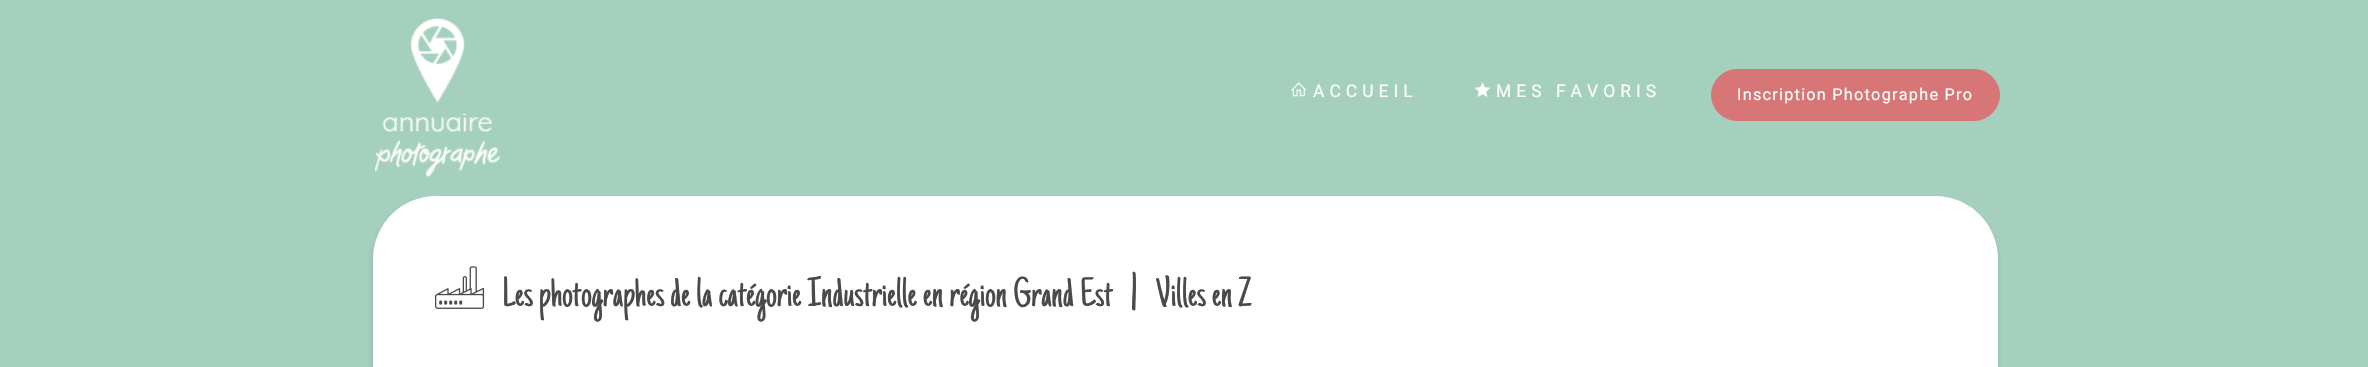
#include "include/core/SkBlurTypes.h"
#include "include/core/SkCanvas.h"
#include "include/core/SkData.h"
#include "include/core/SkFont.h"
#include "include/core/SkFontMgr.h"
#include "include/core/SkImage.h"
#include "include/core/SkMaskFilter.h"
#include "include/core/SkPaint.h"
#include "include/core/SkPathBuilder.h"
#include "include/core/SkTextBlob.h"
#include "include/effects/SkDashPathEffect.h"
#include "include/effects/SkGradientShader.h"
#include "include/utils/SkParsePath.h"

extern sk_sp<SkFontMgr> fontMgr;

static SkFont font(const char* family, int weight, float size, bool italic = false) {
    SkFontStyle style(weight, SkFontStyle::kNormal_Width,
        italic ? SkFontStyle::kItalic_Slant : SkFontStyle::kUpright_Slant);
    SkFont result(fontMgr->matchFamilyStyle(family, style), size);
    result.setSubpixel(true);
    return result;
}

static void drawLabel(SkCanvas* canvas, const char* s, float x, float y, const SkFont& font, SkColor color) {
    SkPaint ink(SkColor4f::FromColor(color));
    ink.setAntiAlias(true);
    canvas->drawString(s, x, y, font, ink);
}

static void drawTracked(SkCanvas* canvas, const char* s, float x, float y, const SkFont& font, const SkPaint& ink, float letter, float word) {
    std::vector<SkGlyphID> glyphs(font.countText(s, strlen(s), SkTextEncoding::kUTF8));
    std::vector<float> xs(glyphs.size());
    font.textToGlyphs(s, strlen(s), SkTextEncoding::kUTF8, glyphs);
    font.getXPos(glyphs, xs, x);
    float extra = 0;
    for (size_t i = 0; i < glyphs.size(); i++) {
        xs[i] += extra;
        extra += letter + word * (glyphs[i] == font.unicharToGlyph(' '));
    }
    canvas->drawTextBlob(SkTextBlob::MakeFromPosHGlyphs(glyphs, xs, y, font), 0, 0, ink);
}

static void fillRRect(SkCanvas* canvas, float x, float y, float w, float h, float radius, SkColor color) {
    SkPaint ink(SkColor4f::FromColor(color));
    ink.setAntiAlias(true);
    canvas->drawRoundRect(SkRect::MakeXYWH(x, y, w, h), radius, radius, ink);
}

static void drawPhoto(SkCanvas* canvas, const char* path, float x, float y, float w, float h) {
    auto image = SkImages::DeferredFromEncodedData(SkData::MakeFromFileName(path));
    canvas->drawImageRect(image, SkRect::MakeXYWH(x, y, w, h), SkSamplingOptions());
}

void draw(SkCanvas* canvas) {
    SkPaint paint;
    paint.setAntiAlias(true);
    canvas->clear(0xFFA6D0BE);
    drawPhoto(canvas, "assets/img1.png", 375, 18, 125, 159);
    drawPhoto(canvas, "assets/img2.png", 1291, 82, 16, 15);
    SkFont font1 = font("Roboto", 400, 17.5f);
    paint.setColor(0xFFFFFFFF);
    drawTracked(canvas, "ACCUEIL", 1313, 97, font1, paint, 5, 0);
    drawPhoto(canvas, "assets/img3.png", 1474, 82, 17, 15);
    drawTracked(canvas, "MES FAVORIS", 1496, 97, font1, paint, 5, 0);
    paint.setColor(0xFFD77676);
    canvas->drawRoundRect(SkRect::MakeXYWH(1711.5f, 69.5f, 288, 51), 25.5f, 25.5f, paint);
    paint.setStroke(true);
    paint.setStrokeWidth(1);
    canvas->drawRoundRect(SkRect::MakeXYWH(1711.5f, 69.5f, 288, 51), 25.5f, 25.5f, paint);
    SkFont font2 = font("Roboto", 400, 16.25f);
    paint.setStroke(false);
    paint.setColor(0xFFFFFFFF);
    drawTracked(canvas, "Inscription Photographe Pro", 1737, 100, font2, paint, 1.25f, 0);
    paint.setColor(0x52353434);
    paint.setMaskFilter(SkMaskFilter::MakeBlur(kNormal_SkBlurStyle, 4));
    canvas->drawRoundRect(SkRect::MakeXYWH(375, 203, 1620, 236), 60, 60, paint);
    paint.setMaskFilter(nullptr);
    fillRRect(canvas, 373, 196, 1625, 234, 63, 0xFFFFFFFF);
    drawPhoto(canvas, "assets/img4.png", 435, 266, 50, 43);
    SkFont font3 = font("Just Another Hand", 400, 42.5f);
    drawLabel(canvas, "Les photographes de la catégorie Industrielle en région Grand Est", 502, 306, font3, 0xFF4A4A4A);
    drawLabel(canvas, "|", 1131, 306, font3, 0xFF4A4A4A);
    drawLabel(canvas, "Villes en Z", 1156, 306, font3, 0xFF4A4A4A);
}
